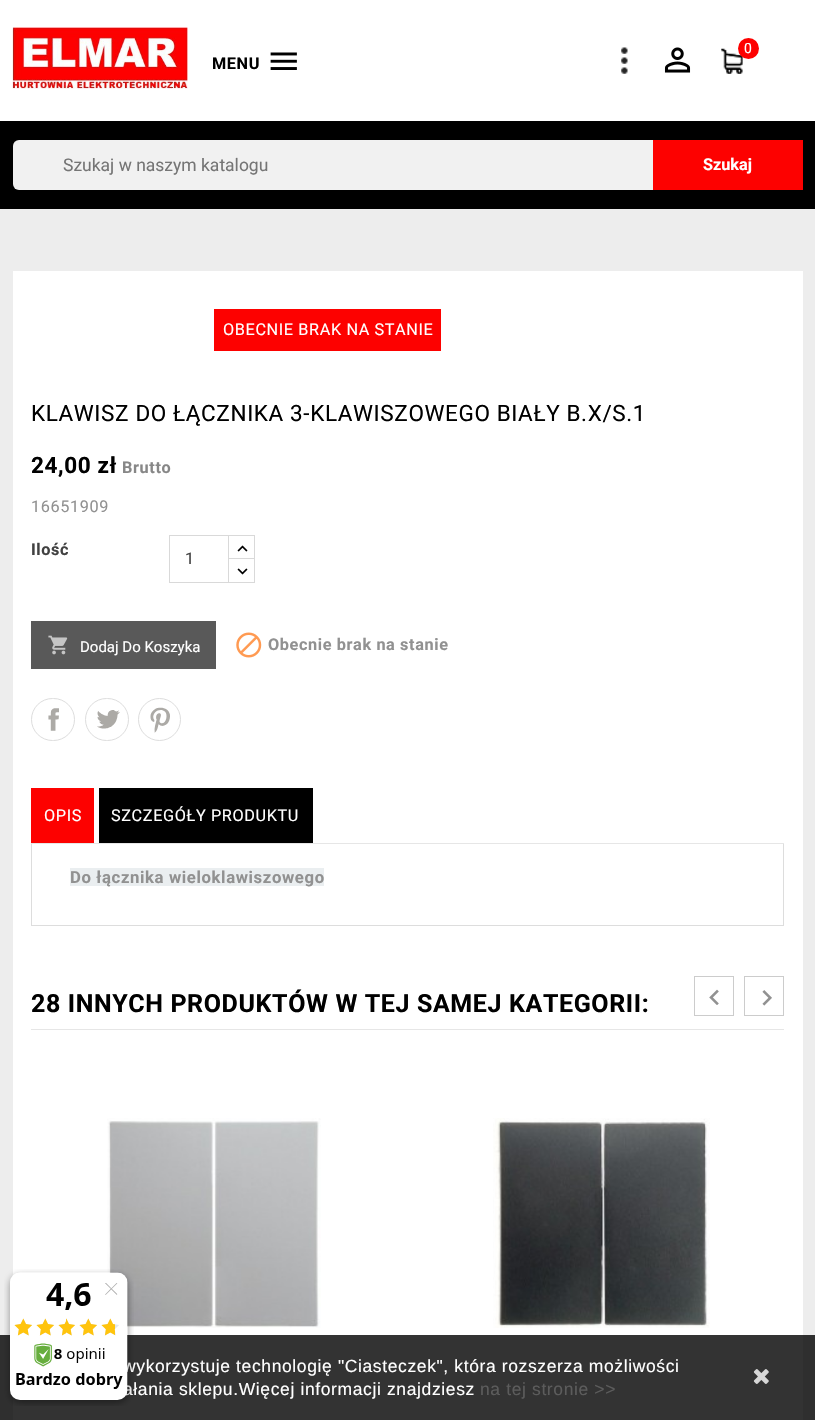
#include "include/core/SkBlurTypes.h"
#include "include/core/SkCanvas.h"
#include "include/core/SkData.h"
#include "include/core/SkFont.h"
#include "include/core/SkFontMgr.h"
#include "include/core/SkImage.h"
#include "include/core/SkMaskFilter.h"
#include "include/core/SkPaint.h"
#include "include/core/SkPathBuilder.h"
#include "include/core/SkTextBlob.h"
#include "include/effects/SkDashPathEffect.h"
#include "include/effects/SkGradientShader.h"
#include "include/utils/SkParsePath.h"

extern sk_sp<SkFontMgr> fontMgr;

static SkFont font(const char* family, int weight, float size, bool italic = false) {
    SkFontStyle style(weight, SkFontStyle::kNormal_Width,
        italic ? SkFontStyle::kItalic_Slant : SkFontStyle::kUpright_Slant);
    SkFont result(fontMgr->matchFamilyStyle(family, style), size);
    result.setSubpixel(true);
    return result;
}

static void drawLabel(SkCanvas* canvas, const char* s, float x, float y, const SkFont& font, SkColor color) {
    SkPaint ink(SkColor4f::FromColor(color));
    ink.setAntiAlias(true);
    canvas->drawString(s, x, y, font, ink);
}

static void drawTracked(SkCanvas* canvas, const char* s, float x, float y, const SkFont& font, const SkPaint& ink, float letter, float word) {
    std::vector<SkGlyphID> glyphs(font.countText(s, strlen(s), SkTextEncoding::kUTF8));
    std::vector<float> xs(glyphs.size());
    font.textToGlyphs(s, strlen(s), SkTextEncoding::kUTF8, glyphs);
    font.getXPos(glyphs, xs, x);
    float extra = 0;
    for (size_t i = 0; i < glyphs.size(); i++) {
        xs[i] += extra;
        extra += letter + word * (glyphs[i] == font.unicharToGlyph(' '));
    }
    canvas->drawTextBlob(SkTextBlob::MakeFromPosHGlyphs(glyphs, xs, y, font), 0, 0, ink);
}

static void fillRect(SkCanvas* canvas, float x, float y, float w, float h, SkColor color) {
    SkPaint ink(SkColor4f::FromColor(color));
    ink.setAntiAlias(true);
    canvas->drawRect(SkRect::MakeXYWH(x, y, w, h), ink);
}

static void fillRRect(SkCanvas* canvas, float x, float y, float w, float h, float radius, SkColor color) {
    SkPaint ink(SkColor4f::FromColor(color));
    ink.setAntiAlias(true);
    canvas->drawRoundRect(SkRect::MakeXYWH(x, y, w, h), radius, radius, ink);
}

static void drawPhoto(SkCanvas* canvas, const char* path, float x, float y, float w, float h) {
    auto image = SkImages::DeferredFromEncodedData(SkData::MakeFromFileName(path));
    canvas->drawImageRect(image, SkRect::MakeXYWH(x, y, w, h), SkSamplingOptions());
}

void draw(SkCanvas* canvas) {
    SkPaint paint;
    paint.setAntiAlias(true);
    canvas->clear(0xFFEDEDED);
    fillRect(canvas, 0, 1335, 815, 85, 0xFF2F2F2F);
    fillRect(canvas, 0, 0, 815, 121, 0xFFFFFFFF);
    drawPhoto(canvas, "assets/img1.png", 12, 27, 176, 62);
    SkFont font1 = font("Roboto", 700, 16.25f);
    paint.setColor(0xFF000000);
    drawTracked(canvas, "MENU", 212, 69, font1, paint, 0.62f, 0);
    drawPhoto(canvas, "assets/img2.png", 270, 52, 27, 18);
    drawPhoto(canvas, "assets/img3.png", 621, 47, 7, 27);
    drawPhoto(canvas, "assets/img4.png", 664, 47, 27, 26);
    drawPhoto(canvas, "assets/img5.png", 721, 48, 22, 26);
    paint.setColor(0xFFFD0100);
    canvas->drawCircle(748.5f, 48.5f, 10.5f, paint);
    SkFont font2 = font("Roboto", 400, 14);
    paint.setColor(0xFFFFFFFF);
    drawTracked(canvas, "0", 744, 53, font2, paint, 0.62f, 0);
    fillRect(canvas, 0, 121, 815, 88, 0xFF000000);
    fillRRect(canvas, 13, 140, 790, 50, 6, 0xFFF1F1F1);
    SkFont font3 = font("Roboto", 400, 17.5f);
    drawLabel(canvas, "Szukaj w naszym katalogu", 63, 171, font3, 0xFF757575);
    fillRect(canvas, 653, 140, 150, 50, 0xFFFD0100);
    drawLabel(canvas, "Szukaj", 703, 170, font1, 0xFFFFFFFF);
    fillRect(canvas, 13, 271, 790, 1064, 0xFFFFFFFF);
    fillRect(canvas, 13, 1335, 790, 85, 0xFF333333);
    fillRect(canvas, 214, 309, 227, 42, 0xFFFD0100);
    SkFont font4 = font("Roboto", 400, 16.25f);
    drawTracked(canvas, "OBECNIE BRAK NA STANIE", 223, 335, font4, paint, 0.62f, 0);
    SkFont font5 = font("Roboto", 400, 22.5f);
    paint.setColor(0xFF000000);
    drawTracked(canvas, "KLAWISZ DO ŁĄCZNIKA 3-KLAWISZOWEGO BIAŁY B.X/S.1", 31, 421, font5, paint, 0.62f, 0);
    SkFont font6 = font("Roboto", 700, 22.5f);
    drawTracked(canvas, "24,00 zł", 31, 473, font6, paint, 0.62f, 0);
    paint.setColor(0xFF878787);
    drawTracked(canvas, "Brutto", 122, 473, font1, paint, 0.62f, 0);
    paint.setColor(0xFF919191);
    drawTracked(canvas, "16651909", 31, 512, font4, paint, 0.62f, 0);
    paint.setColor(0xFF414141);
    drawTracked(canvas, "Ilość", 31, 555, font1, paint, 0.62f, 0);
    paint.setStroke(true);
    paint.setStrokeWidth(1);
    paint.setColor(0xFFD9D9D9);
    canvas->drawRect(SkRect::MakeXYWH(228.5f, 535.5f, 26, 24), paint);
    fillRect(canvas, 229, 559, 25, 1, 0xFFFFFFFF);
    canvas->drawRect(SkRect::MakeXYWH(228.5f, 558.5f, 26, 24), paint);
    canvas->drawRect(SkRect::MakeXYWH(169.5f, 535.5f, 59, 47), paint);
    drawLabel(canvas, "1", 185, 564, font4, 0xFF414141);
    drawPhoto(canvas, "assets/img6.png", 237, 545, 11, 7);
    drawPhoto(canvas, "assets/img7.png", 237, 568, 11, 7);
    fillRect(canvas, 31, 621, 185, 48, 0xFF595959);
    drawPhoto(canvas, "assets/img8.png", 48, 635, 20, 20);
    SkFont font7 = font("Roboto", 400, 15);
    drawLabel(canvas, "Dodaj Do Koszyka", 80, 652, font7, 0xFFFFFFFF);
    drawPhoto(canvas, "assets/img9.png", 236, 632, 26, 26);
    paint.setStroke(false);
    paint.setColor(0xFF919191);
    drawTracked(canvas, "Obecnie brak na stanie", 268, 650, font1, paint, 0.62f, 0);
    drawPhoto(canvas, "assets/img10.png", 48, 708, 11, 23);
    paint.setStroke(true);
    paint.setColor(0xFFDDDDDD);
    canvas->drawRoundRect(SkRect::MakeXYWH(31.5f, 698.5f, 43, 42), 21, 21, paint);
    drawPhoto(canvas, "assets/img11.png", 97, 710, 23, 19);
    canvas->drawRoundRect(SkRect::MakeXYWH(85.5f, 698.5f, 43, 42), 21, 21, paint);
    drawPhoto(canvas, "assets/img12.png", 150, 707, 20, 26);
    canvas->drawCircle(159.5f, 719.5f, 21, paint);
    canvas->drawRect(SkRect::MakeXYWH(31.5f, 843.5f, 752, 82), paint);
    fillRect(canvas, 31, 843, 753, 1, 0xFFE6E6E6);
    fillRect(canvas, 31, 788, 63, 55, 0xFFFD0100);
    paint.setStroke(false);
    paint.setColor(0xFFFFFFFF);
    drawTracked(canvas, "OPIS", 44, 821, font4, paint, 0.62f, 0);
    fillRect(canvas, 99, 788, 214, 55, 0xFF000000);
    drawTracked(canvas, "SZCZEGÓŁY PRODUKTU", 111, 821, font4, paint, 0.62f, 0);
    fillRect(canvas, 70, 868, 254, 18, 0xFFEAEEF0);
    SkFont font8 = font("Roboto", 700, 16.7f);
    paint.setColor(0xFF919191);
    drawTracked(canvas, "Do łącznika wieloklawiszowego", 70, 883, font8, paint, 0.62f, 0);
    paint.setStroke(true);
    paint.setColor(0xFFCCCCCC);
    canvas->drawRect(SkRect::MakeXYWH(694.5f, 976.5f, 39, 39), paint);
    drawPhoto(canvas, "assets/img13.png", 709, 989, 10, 16);
    canvas->drawRect(SkRect::MakeXYWH(744.5f, 976.5f, 39, 39), paint);
    drawPhoto(canvas, "assets/img14.png", 762, 990, 10, 16);
    drawPhoto(canvas, "assets/img15.png", 107, 1118, 214, 210);
    drawPhoto(canvas, "assets/img16.png", 493, 1118, 217, 210);
    fillRect(canvas, 31, 1029, 753, 1, 0xFFE6E6E6);
    SkFont font9 = font("Roboto", 700, 25);
    paint.setStroke(false);
    paint.setColor(0xFF000000);
    drawTracked(canvas, "28 INNYCH PRODUKTÓW W TEJ SAMEJ KATEGORII:", 31, 1012, font9, paint, 0.62f, 0);
    SkFont font10 = font("Liberation Sans", 400, 17.5f);
    paint.setColor(0xFFFFFFFF);
    drawTracked(canvas, "wykorzystuje technologię \"Ciasteczek\", która rozszerza możliwości", 123, 1372, font10, paint, 0.62f, 0);
    drawTracked(canvas, "ałania sklepu.Więcej informacji znajdziesz", 123, 1395, font10, paint, 0.62f, 0);
    drawPhoto(canvas, "assets/img17.png", 4, 1269, 130, 137);
    paint.setColor(0xFF5C5C5C);
    drawTracked(canvas, "na tej stronie >>", 480, 1395, font10, paint, 0.62f, 0);
    drawPhoto(canvas, "assets/img18.png", 753, 1369, 16, 15);
}
